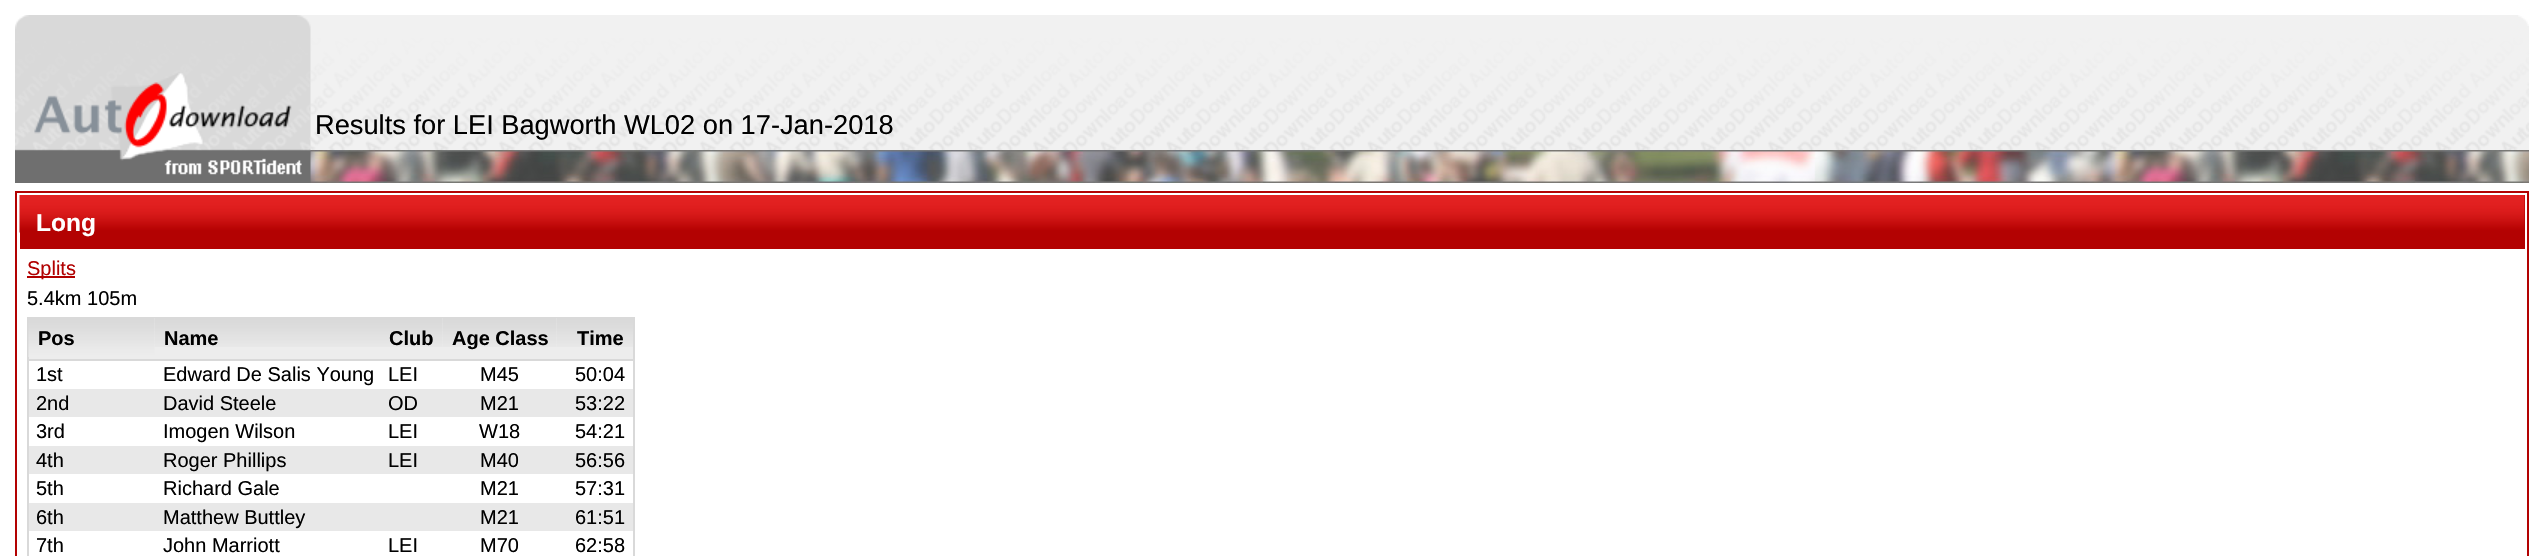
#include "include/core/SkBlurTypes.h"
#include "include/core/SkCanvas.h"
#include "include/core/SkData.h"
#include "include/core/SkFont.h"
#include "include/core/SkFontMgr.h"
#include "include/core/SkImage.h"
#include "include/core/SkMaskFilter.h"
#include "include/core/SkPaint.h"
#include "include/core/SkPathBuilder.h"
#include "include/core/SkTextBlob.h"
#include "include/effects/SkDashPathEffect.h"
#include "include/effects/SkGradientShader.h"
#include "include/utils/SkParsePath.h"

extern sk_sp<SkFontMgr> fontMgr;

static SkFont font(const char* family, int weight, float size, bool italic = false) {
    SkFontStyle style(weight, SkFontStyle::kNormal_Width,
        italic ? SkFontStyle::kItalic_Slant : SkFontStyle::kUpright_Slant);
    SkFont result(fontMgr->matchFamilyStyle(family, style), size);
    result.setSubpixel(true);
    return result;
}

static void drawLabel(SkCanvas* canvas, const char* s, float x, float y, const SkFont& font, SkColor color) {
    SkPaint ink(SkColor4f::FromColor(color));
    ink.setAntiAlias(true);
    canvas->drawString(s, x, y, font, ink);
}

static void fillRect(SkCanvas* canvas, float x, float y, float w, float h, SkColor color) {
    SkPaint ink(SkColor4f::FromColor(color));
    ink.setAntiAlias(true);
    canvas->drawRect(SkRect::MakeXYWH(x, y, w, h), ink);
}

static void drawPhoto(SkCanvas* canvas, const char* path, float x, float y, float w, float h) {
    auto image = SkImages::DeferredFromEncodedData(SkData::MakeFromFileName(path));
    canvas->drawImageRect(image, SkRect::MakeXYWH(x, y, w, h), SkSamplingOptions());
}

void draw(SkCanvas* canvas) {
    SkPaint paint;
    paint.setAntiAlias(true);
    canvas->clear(0xFFFFFFFF);
    drawPhoto(canvas, "assets/img2.png", 310, 15, 2219, 135);
    drawPhoto(canvas, "assets/img4.png", 310, 150, 2219, 33);
    drawPhoto(canvas, "assets/img1.png", 15, 15, 296, 168);
    drawPhoto(canvas, "assets/img3.png", 2518, 15, 11, 11);
    SkFont font1 = font("Liberation Sans", 400, 27.25f);
    drawLabel(canvas, "Results for LEI Bagworth WL02 on 17-Jan-2018", 315, 134, font1, 0xFF000000);
    paint.setStroke(true);
    paint.setStrokeWidth(2);
    paint.setColor(0xFFB30202);
    canvas->drawRect(SkRect::MakeXYWH(16, 192, 2512, 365), paint);
    fillRect(canvas, 20, 195, 2505, 54, 0xFFB30202);
    drawPhoto(canvas, "assets/img5.png", 19, 195, 2506, 38);
    SkFont font2 = font("Liberation Sans", 700, 24.5f);
    drawLabel(canvas, "Long", 36, 231, font2, 0xFFFFFFFF);
    fillRect(canvas, 27, 276, 48, 2, 0xFFB10000);
    SkFont font3 = font("Liberation Sans", 400, 20);
    drawLabel(canvas, "Splits", 27, 275, font3, 0xFFB10000);
    drawLabel(canvas, "5.4km 105m", 27, 305, font3, 0xFF000000);
    paint.setColor(0xFFD9D9D9);
    canvas->drawRect(SkRect::MakeXYWH(28, 318, 606, 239), paint);
    fillRect(canvas, 29, 318, 126, 41, 0xFFEDEDED);
    drawPhoto(canvas, "assets/img6.png", 28, 318, 127, 39);
    fillRect(canvas, 29, 359, 604, 2, 0xFFD9D9D9);
    SkFont font4 = font("Liberation Sans", 700, 20);
    drawLabel(canvas, "Pos", 38, 345, font4, 0xFF000000);
    fillRect(canvas, 155, 347, 226, 12, 0xFFEDEDED);
    drawPhoto(canvas, "assets/img7.png", 154, 318, 227, 29);
    drawLabel(canvas, "Name", 164, 345, font4, 0xFF000000);
    fillRect(canvas, 381, 318, 176, 41, 0xFFEDEDED);
    drawPhoto(canvas, "assets/img8.png", 381, 318, 62, 29);
    drawLabel(canvas, "Club", 389, 345, font4, 0xFF000000);
    drawPhoto(canvas, "assets/img9.png", 442, 318, 115, 29);
    drawLabel(canvas, "Age Class", 452, 345, font4, 0xFF000000);
    fillRect(canvas, 557, 347, 76, 12, 0xFFEDEDED);
    drawPhoto(canvas, "assets/img10.png", 556, 318, 77, 29);
    drawLabel(canvas, "Time", 577, 345, font4, 0xFF000000);
    drawLabel(canvas, "1st", 36, 381, font3, 0xFF000000);
    drawLabel(canvas, "Edward De Salis Young", 163, 381, font3, 0xFF000000);
    drawLabel(canvas, "LEI", 388, 381, font3, 0xFF000000);
    drawLabel(canvas, "M45", 480, 381, font3, 0xFF000000);
    drawLabel(canvas, "50:04", 575, 381, font3, 0xFF000000);
    fillRect(canvas, 29, 389, 604, 28, 0xFFE8E8E8);
    drawLabel(canvas, "2nd", 36, 410, font3, 0xFF000000);
    drawLabel(canvas, "David Steele", 163, 410, font3, 0xFF000000);
    drawLabel(canvas, "OD", 388, 410, font3, 0xFF000000);
    drawLabel(canvas, "M21", 480, 410, font3, 0xFF000000);
    drawLabel(canvas, "53:22", 575, 410, font3, 0xFF000000);
    drawLabel(canvas, "3rd", 36, 438, font3, 0xFF000000);
    drawLabel(canvas, "Imogen Wilson", 163, 438, font3, 0xFF000000);
    drawLabel(canvas, "LEI", 388, 438, font3, 0xFF000000);
    drawLabel(canvas, "W18", 479, 438, font3, 0xFF000000);
    drawLabel(canvas, "54:21", 575, 438, font3, 0xFF000000);
    fillRect(canvas, 29, 446, 604, 28, 0xFFE8E8E8);
    drawLabel(canvas, "4th", 36, 467, font3, 0xFF000000);
    drawLabel(canvas, "Roger Phillips", 163, 467, font3, 0xFF000000);
    drawLabel(canvas, "LEI", 388, 467, font3, 0xFF000000);
    drawLabel(canvas, "M40", 480, 467, font3, 0xFF000000);
    drawLabel(canvas, "56:56", 575, 467, font3, 0xFF000000);
    drawLabel(canvas, "5th", 36, 495, font3, 0xFF000000);
    drawLabel(canvas, "Richard Gale", 163, 495, font3, 0xFF000000);
    drawLabel(canvas, "M21", 480, 495, font3, 0xFF000000);
    drawLabel(canvas, "57:31", 575, 495, font3, 0xFF000000);
    fillRect(canvas, 29, 503, 604, 28, 0xFFE8E8E8);
    drawLabel(canvas, "6th", 36, 524, font3, 0xFF000000);
    drawLabel(canvas, "Matthew Buttley", 163, 524, font3, 0xFF000000);
    drawLabel(canvas, "M21", 480, 524, font3, 0xFF000000);
    drawLabel(canvas, "61:51", 575, 524, font3, 0xFF000000);
    drawLabel(canvas, "7th", 36, 552, font3, 0xFF000000);
    drawLabel(canvas, "John Marriott", 163, 552, font3, 0xFF000000);
    drawLabel(canvas, "LEI", 388, 552, font3, 0xFF000000);
    drawLabel(canvas, "M70", 480, 552, font3, 0xFF000000);
    drawLabel(canvas, "62:58", 575, 552, font3, 0xFF000000);
}
